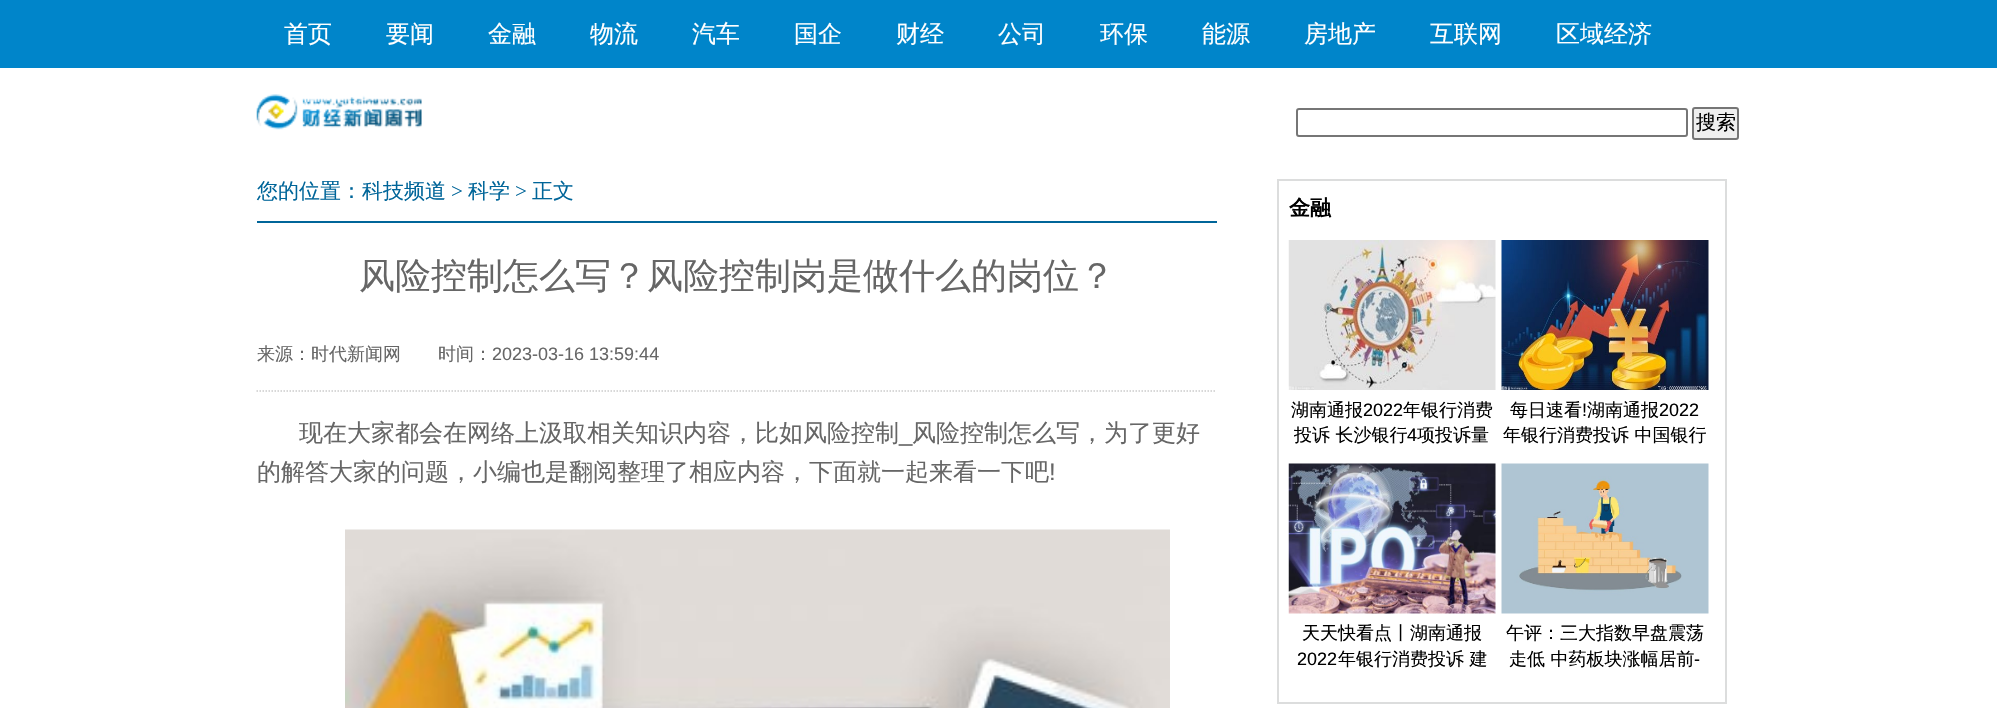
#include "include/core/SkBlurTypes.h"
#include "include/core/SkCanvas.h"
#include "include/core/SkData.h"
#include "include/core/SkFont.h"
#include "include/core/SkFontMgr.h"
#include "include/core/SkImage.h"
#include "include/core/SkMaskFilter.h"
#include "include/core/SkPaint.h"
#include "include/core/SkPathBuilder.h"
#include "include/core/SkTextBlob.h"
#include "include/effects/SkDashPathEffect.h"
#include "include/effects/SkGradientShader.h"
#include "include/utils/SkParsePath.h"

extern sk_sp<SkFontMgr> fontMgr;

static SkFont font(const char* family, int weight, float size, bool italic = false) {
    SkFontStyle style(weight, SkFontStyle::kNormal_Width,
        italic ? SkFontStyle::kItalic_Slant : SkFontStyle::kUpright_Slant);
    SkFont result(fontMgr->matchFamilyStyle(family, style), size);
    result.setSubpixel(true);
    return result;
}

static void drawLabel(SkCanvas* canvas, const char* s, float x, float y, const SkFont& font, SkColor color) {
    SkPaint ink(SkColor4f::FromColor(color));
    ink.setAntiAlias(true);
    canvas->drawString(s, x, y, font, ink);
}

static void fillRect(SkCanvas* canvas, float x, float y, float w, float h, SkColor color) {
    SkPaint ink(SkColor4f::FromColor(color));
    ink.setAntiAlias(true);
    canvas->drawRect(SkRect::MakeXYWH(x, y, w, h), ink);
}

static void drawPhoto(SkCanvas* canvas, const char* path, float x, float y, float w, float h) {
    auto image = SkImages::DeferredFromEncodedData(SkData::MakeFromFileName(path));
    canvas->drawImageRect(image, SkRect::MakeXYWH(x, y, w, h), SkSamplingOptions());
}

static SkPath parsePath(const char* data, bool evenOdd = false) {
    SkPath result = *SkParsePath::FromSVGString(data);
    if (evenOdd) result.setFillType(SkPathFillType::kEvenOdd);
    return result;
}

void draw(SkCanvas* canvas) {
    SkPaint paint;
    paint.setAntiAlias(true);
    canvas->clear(0xFFFFFFFF);
    fillRect(canvas, 0, 0, 1997, 68, 0xFF0085CA);
    SkFont font1 = font("WenQuanYi Zen Hei", 500, 24);
    drawLabel(canvas, "首页", 284, 42, font1, 0xFFFFFFFF);
    drawLabel(canvas, "要闻", 386, 42, font1, 0xFFFFFFFF);
    drawLabel(canvas, "金融", 488, 42, font1, 0xFFFFFFFF);
    drawLabel(canvas, "物流", 590, 42, font1, 0xFFFFFFFF);
    drawLabel(canvas, "汽车", 692, 42, font1, 0xFFFFFFFF);
    drawLabel(canvas, "国企", 794, 42, font1, 0xFFFFFFFF);
    drawLabel(canvas, "财经", 896, 42, font1, 0xFFFFFFFF);
    drawLabel(canvas, "公司", 998, 42, font1, 0xFFFFFFFF);
    drawLabel(canvas, "环保", 1100, 42, font1, 0xFFFFFFFF);
    drawLabel(canvas, "能源", 1202, 42, font1, 0xFFFFFFFF);
    drawLabel(canvas, "房地产", 1304, 42, font1, 0xFFFFFFFF);
    drawLabel(canvas, "互联网", 1430, 42, font1, 0xFFFFFFFF);
    drawLabel(canvas, "区域经济", 1556, 42, font1, 0xFFFFFFFF);
    drawPhoto(canvas, "assets/img1.png", 256, 94, 166, 36);
    paint.setStroke(true);
    paint.setStrokeWidth(2);
    paint.setColor(0xFF767676);
    canvas->drawRoundRect(SkRect::MakeXYWH(1297, 109, 390, 27), 2, 2, paint);
    paint.setStroke(false);
    paint.setColor(0xFFEFEFEF);
    canvas->drawRoundRect(SkRect::MakeXYWH(1693, 108, 45, 31), 2, 2, paint);
    paint.setStroke(true);
    paint.setColor(0xFF767676);
    canvas->drawRoundRect(SkRect::MakeXYWH(1693, 108, 45, 31), 2, 2, paint);
    SkFont font2 = font("WenQuanYi Zen Hei", 500, 20);
    drawLabel(canvas, "搜索", 1696, 129, font2, 0xFF000000);
    fillRect(canvas, 257, 221, 960, 2, 0xFF006599);
    SkFont font3 = font("WenQuanYi Zen Hei", 500, 21);
    drawLabel(canvas, "您的位置：科技频道", 257, 198, font3, 0xFF006599);
    SkFont font4 = font("Liberation Serif", 400, 21);
    drawLabel(canvas, ">", 451, 198, font4, 0xFF006599);
    drawLabel(canvas, "科学", 468, 198, font3, 0xFF006599);
    drawLabel(canvas, ">", 515, 198, font4, 0xFF006599);
    drawLabel(canvas, "正文", 532, 198, font3, 0xFF006599);
    SkFont font5 = font("WenQuanYi Zen Hei", 500, 36);
    drawLabel(canvas, "风险控制怎么写？风险控制岗是做什么的岗位？", 359, 288, font5, 0xFF666666);
    paint.setStrokeWidth(1.5f);
    paint.setColor(0xFFCCCCCC);
    paint.setPathEffect(SkDashPathEffect::Make({{1.5f, 1.5f}}, 0));
    canvas->drawPath(parsePath("M256.5 391H1216.5"), paint);
    paint.setPathEffect(nullptr);
    SkFont font6 = font("WenQuanYi Zen Hei", 500, 18);
    drawLabel(canvas, "来源：时代新闻网", 257, 360, font6, 0xFF666666);
    drawLabel(canvas, "时间：", 438, 360, font6, 0xFF666666);
    SkFont font7 = font("Liberation Sans", 400, 18);
    drawLabel(canvas, "2023-03-16 13:59:44", 492, 360, font7, 0xFF666666);
    drawLabel(canvas, "现在大家都会在网络上汲取相关知识内容，比如风险控制", 299, 441, font1, 0xFF666666);
    SkFont font8 = font("Liberation Sans", 400, 24);
    drawLabel(canvas, "_", 899, 441, font8, 0xFF666666);
    drawLabel(canvas, "风险控制怎么写，为了更好", 912, 441, font1, 0xFF666666);
    drawLabel(canvas, "的解答大家的问题，小编也是翻阅整理了相应内容，下面就一起来看一下吧", 257, 480, font1, 0xFF666666);
    drawLabel(canvas, "!", 1049, 480, font8, 0xFF666666);
    drawPhoto(canvas, "assets/img2.png", 345, 529, 825, 179);
    paint.setStrokeWidth(2);
    paint.setColor(0xFFDCDDDD);
    canvas->drawRect(SkRect::MakeXYWH(1278, 180, 448, 523), paint);
    SkFont font9 = font("WenQuanYi Zen Hei", 700, 21);
    drawLabel(canvas, "金融", 1289, 215, font9, 0xFF000000);
    drawPhoto(canvas, "assets/img3.png", 1288, 240, 208, 150);
    drawLabel(canvas, "湖南通报", 1291, 416, font6, 0xFF000000);
    drawLabel(canvas, "2022", 1363, 416, font7, 0xFF000000);
    drawLabel(canvas, "年银行消费", 1403, 416, font6, 0xFF000000);
    drawLabel(canvas, "投诉 长沙银行", 1294, 441, font6, 0xFF000000);
    drawLabel(canvas, "4", 1407, 441, font7, 0xFF000000);
    drawLabel(canvas, "项投诉量", 1417, 441, font6, 0xFF000000);
    drawPhoto(canvas, "assets/img4.png", 1501, 240, 208, 150);
    drawLabel(canvas, "每日速看", 1510, 416, font6, 0xFF000000);
    drawLabel(canvas, "!", 1582, 416, font7, 0xFF000000);
    drawLabel(canvas, "湖南通报", 1587, 416, font6, 0xFF000000);
    drawLabel(canvas, "2022", 1659, 416, font7, 0xFF000000);
    drawLabel(canvas, "年银行消费投诉 中国银行", 1503, 441, font6, 0xFF000000);
    drawPhoto(canvas, "assets/img5.png", 1288, 463, 208, 151);
    drawLabel(canvas, "天天快看点丨湖南通报", 1302, 639, font6, 0xFF000000);
    drawLabel(canvas, "2022", 1297, 665, font7, 0xFF000000);
    drawLabel(canvas, "年银行消费投诉 建", 1338, 665, font6, 0xFF000000);
    drawPhoto(canvas, "assets/img6.png", 1501, 463, 208, 151);
    drawLabel(canvas, "午评：三大指数早盘震荡", 1506, 639, font6, 0xFF000000);
    drawLabel(canvas, "走低 中药板块涨幅居前", 1509, 665, font6, 0xFF000000);
    drawLabel(canvas, "-", 1694, 665, font7, 0xFF000000);
}
